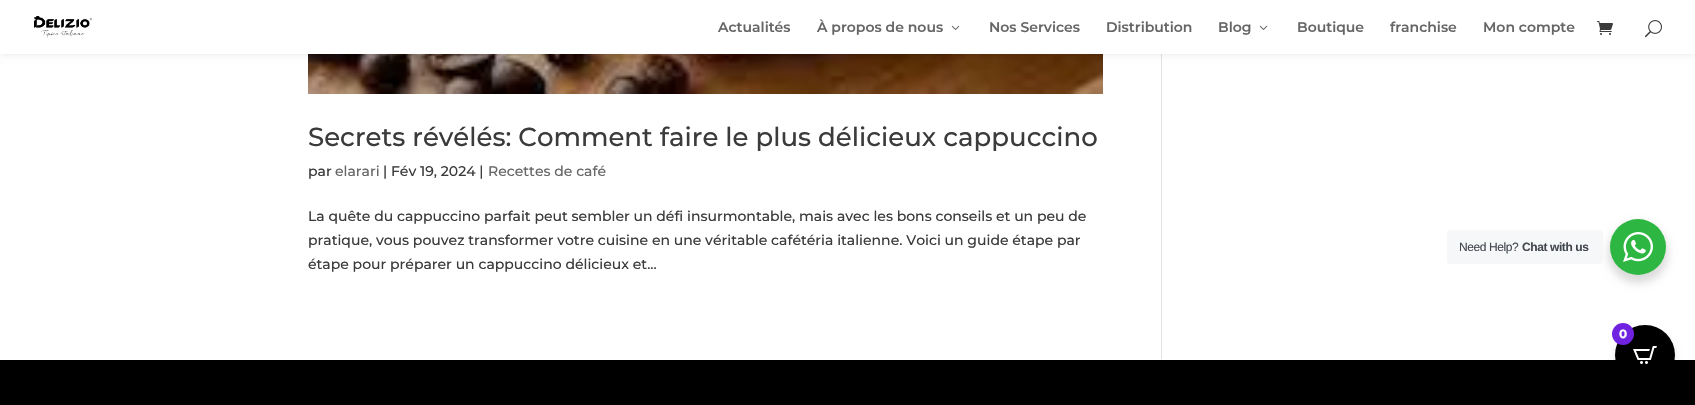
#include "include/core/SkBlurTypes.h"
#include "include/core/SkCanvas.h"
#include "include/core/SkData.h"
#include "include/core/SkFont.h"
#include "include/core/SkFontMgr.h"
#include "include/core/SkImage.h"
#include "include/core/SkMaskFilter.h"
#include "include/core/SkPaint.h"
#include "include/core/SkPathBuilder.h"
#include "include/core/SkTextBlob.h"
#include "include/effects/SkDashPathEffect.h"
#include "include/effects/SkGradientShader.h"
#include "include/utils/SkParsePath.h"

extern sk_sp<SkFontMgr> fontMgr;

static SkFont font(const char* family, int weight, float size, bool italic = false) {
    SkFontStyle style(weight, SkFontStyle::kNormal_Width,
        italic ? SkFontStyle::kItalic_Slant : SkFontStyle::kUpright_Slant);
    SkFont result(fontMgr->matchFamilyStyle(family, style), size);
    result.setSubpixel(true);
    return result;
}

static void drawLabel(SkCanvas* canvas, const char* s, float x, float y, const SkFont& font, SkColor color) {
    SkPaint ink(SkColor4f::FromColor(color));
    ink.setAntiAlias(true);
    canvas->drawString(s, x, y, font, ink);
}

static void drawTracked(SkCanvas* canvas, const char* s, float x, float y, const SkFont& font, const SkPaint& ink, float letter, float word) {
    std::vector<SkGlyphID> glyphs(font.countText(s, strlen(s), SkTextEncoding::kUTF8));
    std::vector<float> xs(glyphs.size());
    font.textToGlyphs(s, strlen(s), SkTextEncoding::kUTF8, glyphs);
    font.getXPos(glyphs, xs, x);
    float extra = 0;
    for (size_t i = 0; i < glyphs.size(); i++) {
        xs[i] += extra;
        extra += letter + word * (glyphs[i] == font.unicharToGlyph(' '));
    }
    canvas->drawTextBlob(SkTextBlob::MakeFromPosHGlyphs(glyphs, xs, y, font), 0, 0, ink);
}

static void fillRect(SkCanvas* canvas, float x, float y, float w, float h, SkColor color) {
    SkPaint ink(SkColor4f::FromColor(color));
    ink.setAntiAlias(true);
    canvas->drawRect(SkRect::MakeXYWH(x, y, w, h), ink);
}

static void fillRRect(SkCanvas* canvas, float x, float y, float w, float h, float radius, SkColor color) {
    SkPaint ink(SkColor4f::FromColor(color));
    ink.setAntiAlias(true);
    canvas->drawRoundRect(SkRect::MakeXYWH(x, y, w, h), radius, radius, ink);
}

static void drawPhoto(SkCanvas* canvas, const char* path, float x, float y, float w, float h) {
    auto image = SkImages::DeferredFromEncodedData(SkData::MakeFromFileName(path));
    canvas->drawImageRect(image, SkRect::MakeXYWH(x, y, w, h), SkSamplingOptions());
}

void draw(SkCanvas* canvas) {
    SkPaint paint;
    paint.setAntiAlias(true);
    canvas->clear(0xFFFFFFFF);
    drawPhoto(canvas, "assets/img5.png", 308, 54, 795, 40);
    fillRect(canvas, 1161, 54, 1, 305, 0xFFE2E2E2);
    paint.setColor(0x1A000000);
    paint.setMaskFilter(SkMaskFilter::MakeBlur(kNormal_SkBlurStyle, 3.5f));
    canvas->drawRect(SkRect::MakeXYWH(0, 0, 1695, 54), paint);
    paint.setMaskFilter(nullptr);
    fillRect(canvas, 0, 0, 1695, 54, 0xFFFFFFFF);
    drawPhoto(canvas, "assets/img1.png", 34, 16, 58, 22);
    SkFont font1 = font("Montserrat", 600, 14);
    drawLabel(canvas, "Actualités", 718, 32, font1, 0xFF666666);
    drawLabel(canvas, "À propos de nous", 817, 32, font1, 0xFF666666);
    drawPhoto(canvas, "assets/img2.png", 951, 25, 9, 5);
    drawLabel(canvas, "Nos Services", 989, 32, font1, 0xFF666666);
    drawLabel(canvas, "Distribution", 1106, 32, font1, 0xFF666666);
    drawLabel(canvas, "Blog", 1218, 32, font1, 0xFF666666);
    drawPhoto(canvas, "assets/img2.png", 1259, 25, 9, 5);
    drawLabel(canvas, "Boutique", 1297, 32, font1, 0xFF666666);
    drawLabel(canvas, "franchise", 1390, 32, font1, 0xFF666666);
    drawLabel(canvas, "Mon compte", 1483, 32, font1, 0xFF666666);
    drawPhoto(canvas, "assets/img3.png", 1597, 21, 16, 14);
    drawPhoto(canvas, "assets/img4.png", 1645, 20, 17, 18);
    SkFont font2 = font("Montserrat", 500, 26);
    drawLabel(canvas, "Secrets révélés: Comment faire le plus délicieux cappuccino", 308, 146, font2, 0xFF3B3B3B);
    SkFont font3 = font("Montserrat", 500, 14);
    drawLabel(canvas, "par", 308, 176, font3, 0xFF3B3B3B);
    drawLabel(canvas, "elarari", 335, 176, font3, 0xFF666666);
    drawLabel(canvas, "| Fév 19, 2024 |", 383, 176, font3, 0xFF3B3B3B);
    drawLabel(canvas, "Recettes de café", 488, 176, font3, 0xFF666666);
    drawLabel(canvas, "La quête du cappuccino parfait peut sembler un défi insurmontable, mais avec les bons conseils et un peu de", 308, 221, font3, 0xFF3B3B3B);
    drawLabel(canvas, "pratique, vous pouvez transformer votre cuisine en une véritable cafétéria italienne. Voici un guide étape par", 308, 245, font3, 0xFF3B3B3B);
    drawLabel(canvas, "étape pour préparer un cappuccino délicieux et...", 308, 269, font3, 0xFF3B3B3B);
    fillRect(canvas, 0, 360, 1695, 45, 0xFF000000);
    paint.setColor(0x24000000);
    paint.setMaskFilter(SkMaskFilter::MakeBlur(kNormal_SkBlurStyle, 4));
    canvas->drawRoundRect(SkRect::MakeXYWH(1608, 223, 60, 60), 30, 30, paint);
    paint.setMaskFilter(nullptr);
    fillRRect(canvas, 1447, 230, 156, 34, 4, 0xFFF5F7F9);
    SkFont font4 = font("Liberation Sans", 400, 12);
    paint.setColor(0xFF43474E);
    drawTracked(canvas, "Need Help?", 1459, 251, font4, paint, -0.4f, 0);
    SkFont font5 = font("Liberation Sans", 700, 12);
    drawTracked(canvas, "Chat with us", 1522, 251, font5, paint, -0.4f, 0);
    paint.setColor(0xFF2DB742);
    canvas->drawCircle(1638, 247, 28, paint);
    drawPhoto(canvas, "assets/img6.png", 1623, 232, 30, 30);
    paint.setColor(0x1A000000);
    paint.setMaskFilter(SkMaskFilter::MakeBlur(kNormal_SkBlurStyle, 3.5f));
    canvas->drawRoundRect(SkRect::MakeXYWH(1615, 329, 60, 60), 30, 30, paint);
    paint.setMaskFilter(nullptr);
    paint.setColor(0xFF000000);
    canvas->drawCircle(1645, 355, 30, paint);
    paint.setColor(0xFF6F23E1);
    canvas->drawCircle(1623, 334, 11, paint);
    SkFont font6 = font("Montserrat", 700, 12);
    drawLabel(canvas, "0", 1619, 338, font6, 0xFFFFFFFF);
    drawPhoto(canvas, "assets/img7.png", 1633, 346, 24, 18);
}
